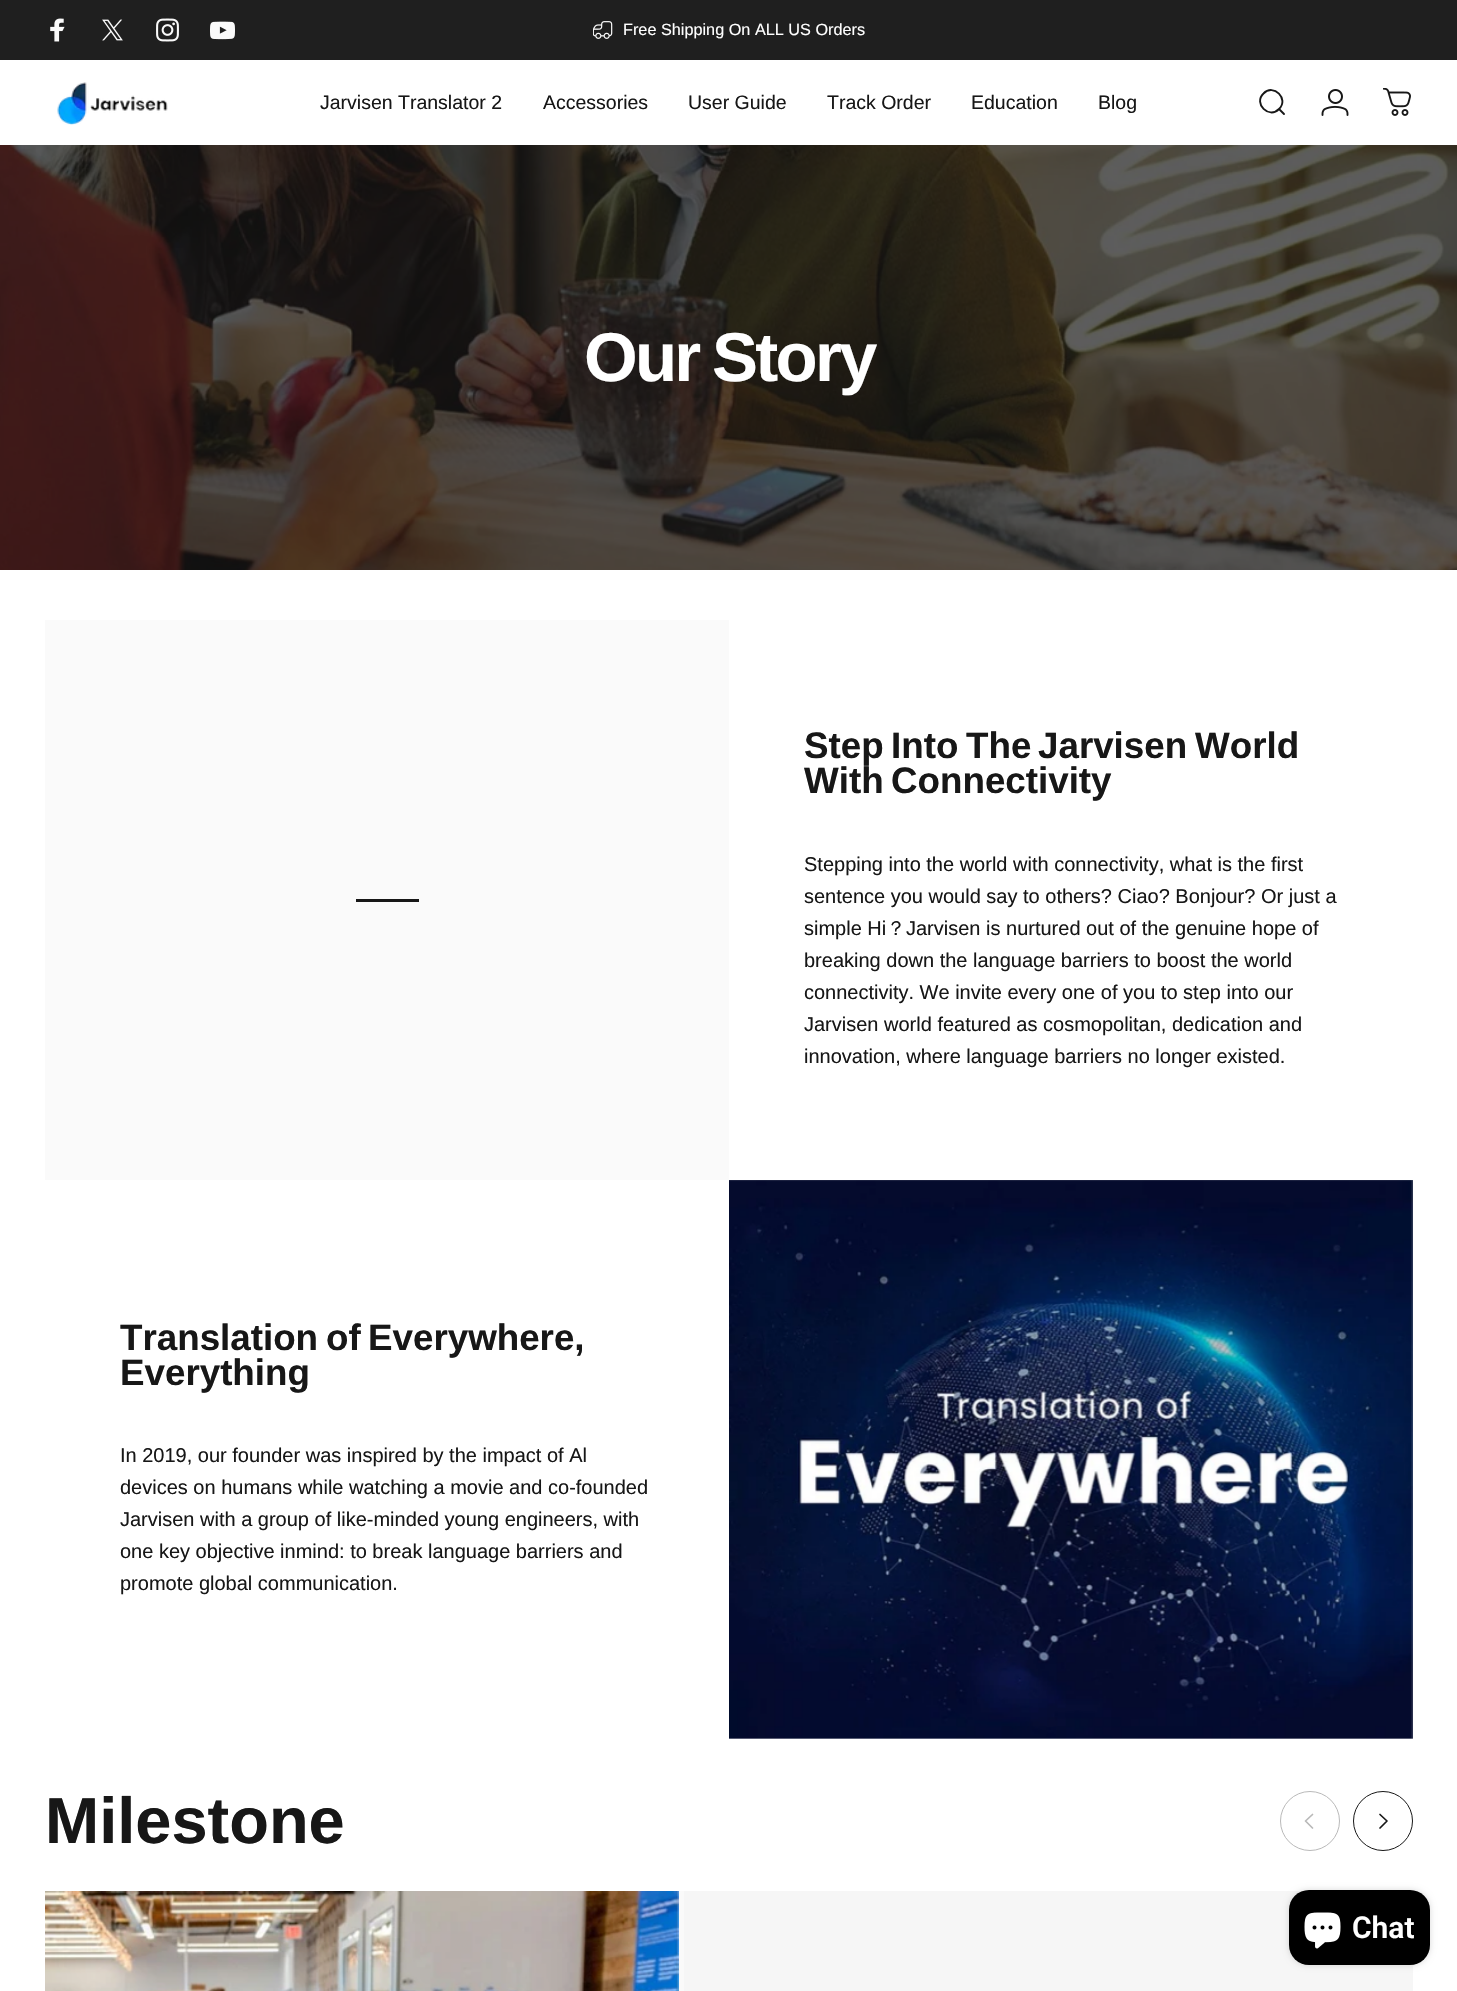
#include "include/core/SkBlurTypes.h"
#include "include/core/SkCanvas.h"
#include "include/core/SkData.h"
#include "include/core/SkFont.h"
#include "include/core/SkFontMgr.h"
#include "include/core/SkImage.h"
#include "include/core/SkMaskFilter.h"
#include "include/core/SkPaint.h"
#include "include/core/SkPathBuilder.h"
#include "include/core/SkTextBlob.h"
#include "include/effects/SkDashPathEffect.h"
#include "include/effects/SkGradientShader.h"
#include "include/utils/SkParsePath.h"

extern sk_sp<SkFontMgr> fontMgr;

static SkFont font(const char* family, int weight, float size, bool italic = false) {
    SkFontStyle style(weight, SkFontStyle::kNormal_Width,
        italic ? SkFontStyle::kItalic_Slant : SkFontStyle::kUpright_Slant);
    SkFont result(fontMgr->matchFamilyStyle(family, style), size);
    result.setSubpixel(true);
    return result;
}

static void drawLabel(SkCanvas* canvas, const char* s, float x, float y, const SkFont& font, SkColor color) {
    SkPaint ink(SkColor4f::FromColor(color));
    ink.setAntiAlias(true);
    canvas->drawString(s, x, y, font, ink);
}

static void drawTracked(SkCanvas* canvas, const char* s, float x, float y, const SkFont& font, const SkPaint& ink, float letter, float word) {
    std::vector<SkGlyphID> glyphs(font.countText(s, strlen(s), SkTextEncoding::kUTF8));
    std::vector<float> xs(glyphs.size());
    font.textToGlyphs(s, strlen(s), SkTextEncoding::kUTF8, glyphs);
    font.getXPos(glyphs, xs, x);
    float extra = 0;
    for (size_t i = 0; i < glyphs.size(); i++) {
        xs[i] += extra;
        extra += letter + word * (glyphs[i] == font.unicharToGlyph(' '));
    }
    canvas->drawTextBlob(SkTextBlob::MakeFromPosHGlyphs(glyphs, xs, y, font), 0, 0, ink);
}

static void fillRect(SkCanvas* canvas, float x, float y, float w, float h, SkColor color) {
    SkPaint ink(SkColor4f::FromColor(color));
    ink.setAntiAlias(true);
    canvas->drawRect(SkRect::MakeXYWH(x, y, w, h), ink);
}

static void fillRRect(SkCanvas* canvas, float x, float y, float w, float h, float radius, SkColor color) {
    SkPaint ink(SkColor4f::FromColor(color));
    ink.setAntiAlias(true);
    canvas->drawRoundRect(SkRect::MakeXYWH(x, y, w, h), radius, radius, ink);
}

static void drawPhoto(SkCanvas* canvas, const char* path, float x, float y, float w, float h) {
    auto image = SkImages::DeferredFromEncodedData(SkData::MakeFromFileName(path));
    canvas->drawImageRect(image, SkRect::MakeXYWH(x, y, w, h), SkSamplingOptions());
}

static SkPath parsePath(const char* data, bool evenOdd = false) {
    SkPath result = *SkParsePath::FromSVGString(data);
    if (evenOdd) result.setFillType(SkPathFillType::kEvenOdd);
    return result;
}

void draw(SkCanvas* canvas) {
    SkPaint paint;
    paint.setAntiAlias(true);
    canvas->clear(0xFFFFFFFF);
    fillRect(canvas, 0, 0, 1457, 60, 0xFF1F1F1F);
    drawPhoto(canvas, "assets/img1.png", 50, 18, 15, 24);
    drawPhoto(canvas, "assets/img2.png", 102, 19, 21, 22);
    drawPhoto(canvas, "assets/img3.png", 156, 18, 23, 24);
    drawPhoto(canvas, "assets/img4.png", 210, 21, 25, 19);
    drawPhoto(canvas, "assets/img5.png", 593, 21, 20, 18);
    SkFont font1 = font("Liberation Sans", 400, 16.25f);
    drawLabel(canvas, "Free Shipping On ALL US Orders", 623, 35, font1, 0xFFFFFFFF);
    drawPhoto(canvas, "assets/img6.png", 57, 82, 111, 43);
    SkFont font2 = font("Liberation Sans", 400, 19.5f);
    drawLabel(canvas, "Jarvisen Translator 2", 320, 109, font2, 0xFF171717);
    drawLabel(canvas, "Accessories", 543, 109, font2, 0xFF171717);
    drawLabel(canvas, "User Guide", 688, 109, font2, 0xFF171717);
    drawLabel(canvas, "Track Order", 827, 109, font2, 0xFF171717);
    drawLabel(canvas, "Education", 971, 109, font2, 0xFF171717);
    drawLabel(canvas, "Blog", 1098, 109, font2, 0xFF171717);
    paint.setStroke(true);
    paint.setStrokeWidth(1.9f);
    paint.setStrokeCap(SkPaint::kRound_Cap);
    paint.setColor(0xFF171717);
    canvas->drawPath(parsePath("M1284 114L1279 109M1279 109C1289.5 99 1273.5 83 1263.5 93.5C1253 103.5 1269 119.5 1279 109Z"), paint);
    drawPhoto(canvas, "assets/img7.png", 1321, 89, 28, 27);
    drawPhoto(canvas, "assets/img8.png", 1383, 88, 28, 28);
    drawPhoto(canvas, "assets/img9.png", 0, 145, 1457, 425);
    SkFont font3 = font("Liberation Sans", 700, 69);
    paint.setStroke(false);
    paint.setColor(0xFFFFFFFF);
    drawTracked(canvas, "Our", 584, 381, font3, paint, -2.75f, 0);
    drawTracked(canvas, "Story", 712, 381, font3, paint, -2.75f, 0);
    fillRect(canvas, 45, 620, 684, 560, 0xFFFAFAFA);
    fillRect(canvas, 356, 899, 63, 3, 0xFF171717);
    SkFont font4 = font("Liberation Sans", 700, 36.75f);
    drawLabel(canvas, "Step", 804, 758, font4, 0xFF171717);
    drawLabel(canvas, "Into", 891, 758, font4, 0xFF171717);
    drawLabel(canvas, "The", 966, 758, font4, 0xFF171717);
    drawLabel(canvas, "Jarvisen", 1038, 758, font4, 0xFF171717);
    drawLabel(canvas, "World", 1195, 758, font4, 0xFF171717);
    drawLabel(canvas, "With", 804, 793, font4, 0xFF171717);
    drawLabel(canvas, "Connectivity", 891, 793, font4, 0xFF171717);
    SkFont font5 = font("Liberation Sans", 400, 20);
    drawLabel(canvas, "Stepping into the world with connectivity, what is the first", 804, 871, font5, 0xFF171717);
    drawLabel(canvas, "sentence you would say to others? Ciao? Bonjour? Or just a", 804, 903, font5, 0xFF171717);
    drawLabel(canvas, "simple Hi", 804, 935, font5, 0xFF171717);
    SkFont font6 = font("WenQuanYi Zen Hei", 500, 20);
    drawLabel(canvas, "？", 886, 935, font6, 0xFF171717);
    drawLabel(canvas, "Jarvisen is nurtured out of the genuine hope of", 906, 935, font5, 0xFF171717);
    drawLabel(canvas, "breaking down the language barriers to boost the world", 804, 967, font5, 0xFF171717);
    drawLabel(canvas, "connectivity. We invite every one of you to step into our", 804, 999, font5, 0xFF171717);
    drawLabel(canvas, "Jarvisen world featured as cosmopolitan, dedication and", 804, 1031, font5, 0xFF171717);
    drawLabel(canvas, "innovation, where language barriers no longer existed.", 804, 1063, font5, 0xFF171717);
    drawLabel(canvas, "Translation", 120, 1350, font4, 0xFF171717);
    drawLabel(canvas, "of", 326, 1350, font4, 0xFF171717);
    drawLabel(canvas, "Everywhere,", 368, 1350, font4, 0xFF171717);
    drawLabel(canvas, "Everything", 120, 1385, font4, 0xFF171717);
    drawLabel(canvas, "In 2019, our founder was inspired by the impact of Al", 120, 1462, font5, 0xFF171717);
    drawLabel(canvas, "devices on humans while watching a movie and co-founded", 120, 1494, font5, 0xFF171717);
    drawLabel(canvas, "Jarvisen with a group of like-minded young engineers, with", 120, 1526, font5, 0xFF171717);
    drawLabel(canvas, "one key objective inmind: to break language barriers and", 120, 1558, font5, 0xFF171717);
    drawLabel(canvas, "promote global communication.", 120, 1590, font5, 0xFF171717);
    fillRect(canvas, 729, 1180, 684, 559, 0xFFFAFAFA);
    drawPhoto(canvas, "assets/img10.png", 729, 1180, 684, 559);
    SkFont font7 = font("Liberation Sans", 700, 65);
    drawLabel(canvas, "Milestone", 45, 1843, font7, 0xFF171717);
    paint.setStroke(true);
    paint.setStrokeWidth(1);
    paint.setStrokeCap(SkPaint::kButt_Cap);
    paint.setColor(0xFFB9B9B9);
    canvas->drawCircle(1310, 1821, 29.5f, paint);
    paint.setStrokeWidth(1.7f);
    paint.setStrokeCap(SkPaint::kRound_Cap);
    paint.setStrokeJoin(SkPaint::kRound_Join);
    canvas->drawPath(parsePath("M1312.5 1814.5L1305.5 1821L1312.5 1828"), paint);
    paint.setStrokeWidth(1);
    paint.setStrokeCap(SkPaint::kButt_Cap);
    paint.setStrokeJoin(SkPaint::kMiter_Join);
    paint.setColor(0xFF171717);
    canvas->drawCircle(1383, 1821, 29.5f, paint);
    paint.setStrokeWidth(1.7f);
    paint.setStrokeCap(SkPaint::kRound_Cap);
    paint.setStrokeJoin(SkPaint::kRound_Join);
    canvas->drawPath(parsePath("M1380 1814.5L1387 1821L1380 1828"), paint);
    fillRect(canvas, 684, 1891, 729, 100, 0xFFF6F6F6);
    fillRect(canvas, 679, 1891, 5, 100, 0xFFFAFAFA);
    drawPhoto(canvas, "assets/img11.png", 45, 1891, 634, 100);
    paint.setStroke(false);
    paint.setColor(0x26000000);
    paint.setMaskFilter(SkMaskFilter::MakeBlur(kNormal_SkBlurStyle, 3));
    canvas->drawRoundRect(SkRect::MakeXYWH(1289, 1890, 141, 75), 20, 20, paint);
    paint.setMaskFilter(nullptr);
    fillRRect(canvas, 1289, 1890, 141, 75, 20, 0xFF000000);
    drawPhoto(canvas, "assets/img12.png", 1304, 1912, 37, 37);
    SkFont font8 = font("Roboto", 600, 30);
    drawLabel(canvas, "Chat", 1352, 1938, font8, 0xFFFFFFFF);
}
